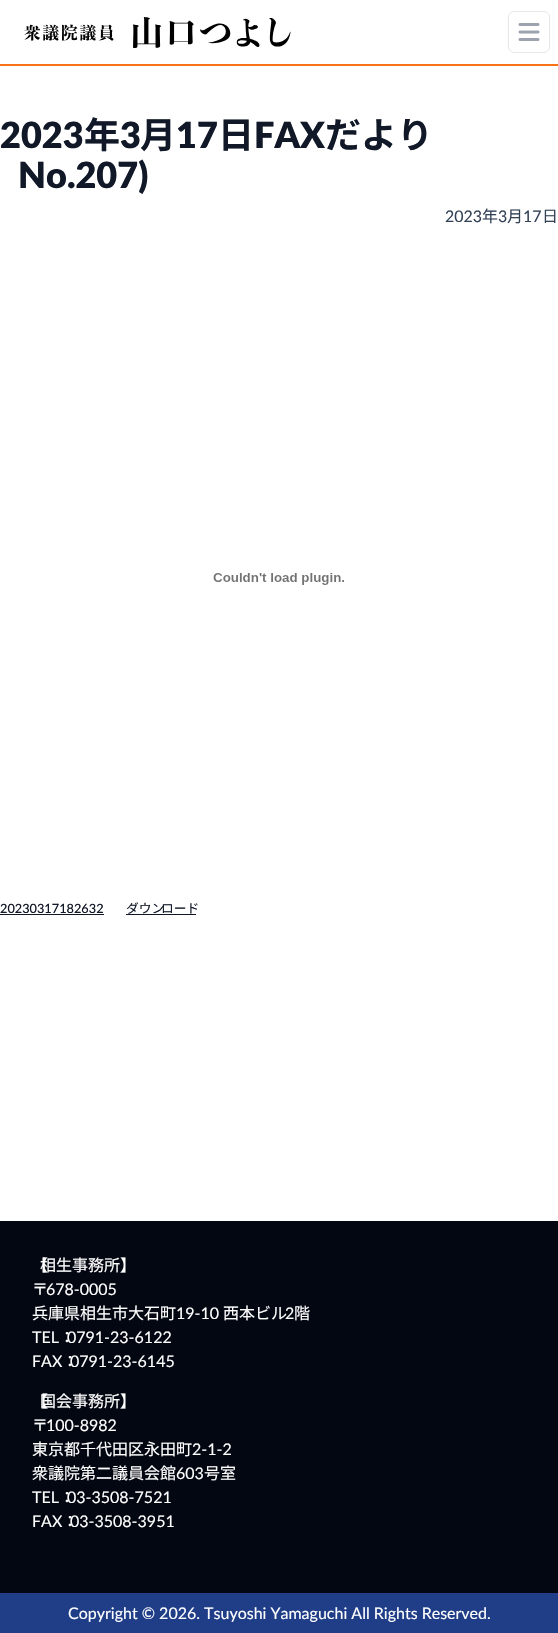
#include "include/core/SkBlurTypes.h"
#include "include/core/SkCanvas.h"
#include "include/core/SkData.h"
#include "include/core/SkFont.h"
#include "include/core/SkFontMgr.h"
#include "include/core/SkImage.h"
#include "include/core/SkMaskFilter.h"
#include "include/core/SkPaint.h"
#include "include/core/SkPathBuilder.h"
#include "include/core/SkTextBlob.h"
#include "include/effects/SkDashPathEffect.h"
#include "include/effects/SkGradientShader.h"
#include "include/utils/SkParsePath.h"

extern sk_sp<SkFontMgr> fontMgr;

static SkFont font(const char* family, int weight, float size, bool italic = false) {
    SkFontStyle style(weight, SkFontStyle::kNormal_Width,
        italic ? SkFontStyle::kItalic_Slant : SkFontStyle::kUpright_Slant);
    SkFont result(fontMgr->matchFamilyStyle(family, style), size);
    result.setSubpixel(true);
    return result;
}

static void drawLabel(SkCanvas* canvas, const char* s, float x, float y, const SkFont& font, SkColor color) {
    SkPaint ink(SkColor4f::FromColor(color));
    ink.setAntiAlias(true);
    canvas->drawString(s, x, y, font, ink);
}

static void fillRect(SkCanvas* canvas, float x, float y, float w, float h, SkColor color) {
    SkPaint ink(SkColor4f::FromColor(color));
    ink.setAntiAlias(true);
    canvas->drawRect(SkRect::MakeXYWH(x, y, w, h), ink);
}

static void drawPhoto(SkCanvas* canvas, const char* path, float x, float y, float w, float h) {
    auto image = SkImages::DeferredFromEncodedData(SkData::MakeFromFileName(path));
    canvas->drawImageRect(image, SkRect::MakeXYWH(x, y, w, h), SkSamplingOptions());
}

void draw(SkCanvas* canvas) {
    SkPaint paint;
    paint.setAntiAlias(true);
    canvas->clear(0xFFFFFFFF);
    fillRect(canvas, 0, 64, 558, 2, 0xFFF97316);
    drawPhoto(canvas, "assets/img1.png", 24, 17, 267, 31);
    paint.setStroke(true);
    paint.setStrokeWidth(1);
    paint.setColor(0xFFE5E7EB);
    canvas->drawRoundRect(SkRect::MakeXYWH(508.5f, 11.5f, 41, 41), 5.5f, 5.5f, paint);
    drawPhoto(canvas, "assets/img2.png", 518, 23, 22, 18);
    SkFont font1 = font("Lato", 800, 36);
    drawLabel(canvas, "2023", 0, 148, font1, 0xFF111827);
    SkFont font2 = font("Noto Sans JP", 700, 36);
    drawLabel(canvas, "年", 84, 148, font2, 0xFF111827);
    drawLabel(canvas, "3", 120, 148, font1, 0xFF111827);
    drawLabel(canvas, "月", 140, 148, font2, 0xFF111827);
    drawLabel(canvas, "17", 176, 148, font1, 0xFF111827);
    drawLabel(canvas, "日", 218, 148, font2, 0xFF111827);
    drawLabel(canvas, "FAX", 254, 148, font1, 0xFF111827);
    drawLabel(canvas, "だより", 325, 148, font2, 0xFF111827);
    drawLabel(canvas, "No.207)", 18, 188, font1, 0xFF111827);
    SkFont font3 = font("Lato", 400, 16);
    drawLabel(canvas, "2023", 445, 222, font3, 0xFF334155);
    SkFont font4 = font("Noto Sans JP", 400, 16);
    drawLabel(canvas, "年", 482, 222, font4, 0xFF334155);
    drawLabel(canvas, "3", 498, 222, font3, 0xFF334155);
    drawLabel(canvas, "月", 507, 222, font4, 0xFF334155);
    drawLabel(canvas, "17", 523, 222, font3, 0xFF334155);
    drawLabel(canvas, "日", 542, 222, font4, 0xFF334155);
    drawPhoto(canvas, "assets/img3.png", 213, 573, 131, 12);
    SkFont font5 = font("Lato", 500, 12.75f);
    drawLabel(canvas, "20230317182632", 0, 913, font5, 0xFF111827);
    fillRect(canvas, 0, 914, 104, 1, 0xFF111827);
    SkFont font6 = font("Noto Sans JP", 400, 12.75f);
    drawLabel(canvas, "ダウン", 126, 913, font6, 0xFF111827);
    drawLabel(canvas, "ロード", 161, 913, font6, 0xFF111827);
    fillRect(canvas, 126, 914, 70, 1, 0xFF111827);
    fillRect(canvas, 0, 1221, 558, 372, 0xFF030712);
    drawLabel(canvas, "【", 32, 1271, font4, 0xFFFFFFFF);
    drawLabel(canvas, "相生事務所】", 40, 1271, font4, 0xFFFFFFFF);
    drawLabel(canvas, "〒", 32, 1295, font4, 0xFFFFFFFF);
    drawLabel(canvas, "678-0005", 46, 1295, font3, 0xFFFFFFFF);
    drawLabel(canvas, "兵庫県相生市大石町", 32, 1319, font4, 0xFFFFFFFF);
    drawLabel(canvas, "19-10", 176, 1319, font3, 0xFFFFFFFF);
    drawLabel(canvas, "西本ビル", 223, 1319, font4, 0xFFFFFFFF);
    drawLabel(canvas, "2", 285, 1319, font3, 0xFFFFFFFF);
    drawLabel(canvas, "階", 294, 1319, font4, 0xFFFFFFFF);
    drawLabel(canvas, "TEL", 32, 1343, font3, 0xFFFFFFFF);
    drawLabel(canvas, "：", 59, 1343, font4, 0xFFFFFFFF);
    drawLabel(canvas, "0791-23-6122", 67, 1343, font3, 0xFFFFFFFF);
    drawLabel(canvas, "FAX", 32, 1367, font3, 0xFFFFFFFF);
    drawLabel(canvas, "：", 62, 1367, font4, 0xFFFFFFFF);
    drawLabel(canvas, "0791-23-6145", 70, 1367, font3, 0xFFFFFFFF);
    drawLabel(canvas, "【", 32, 1407, font4, 0xFFFFFFFF);
    drawLabel(canvas, "国会事務所】", 40, 1407, font4, 0xFFFFFFFF);
    drawLabel(canvas, "〒", 32, 1431, font4, 0xFFFFFFFF);
    drawLabel(canvas, "100-8982", 46, 1431, font3, 0xFFFFFFFF);
    drawLabel(canvas, "東京都千代田区永田町", 32, 1455, font4, 0xFFFFFFFF);
    drawLabel(canvas, "2-1-2", 192, 1455, font3, 0xFFFFFFFF);
    drawLabel(canvas, "衆議院第二議員会館", 32, 1479, font4, 0xFFFFFFFF);
    drawLabel(canvas, "603", 176, 1479, font3, 0xFFFFFFFF);
    drawLabel(canvas, "号室", 204, 1479, font4, 0xFFFFFFFF);
    drawLabel(canvas, "TEL", 32, 1503, font3, 0xFFFFFFFF);
    drawLabel(canvas, "：", 59, 1503, font4, 0xFFFFFFFF);
    drawLabel(canvas, "03-3508-7521", 67, 1503, font3, 0xFFFFFFFF);
    drawLabel(canvas, "FAX", 32, 1527, font3, 0xFFFFFFFF);
    drawLabel(canvas, "：", 62, 1527, font4, 0xFFFFFFFF);
    drawLabel(canvas, "03-3508-3951", 70, 1527, font3, 0xFFFFFFFF);
    fillRect(canvas, 0, 1593, 558, 40, 0xFF1F3E87);
    drawLabel(canvas, "Copyright © 2026. Tsuyoshi Yamaguchi All Rights Reserved.", 68, 1619, font3, 0xFFFFFFFF);
}
